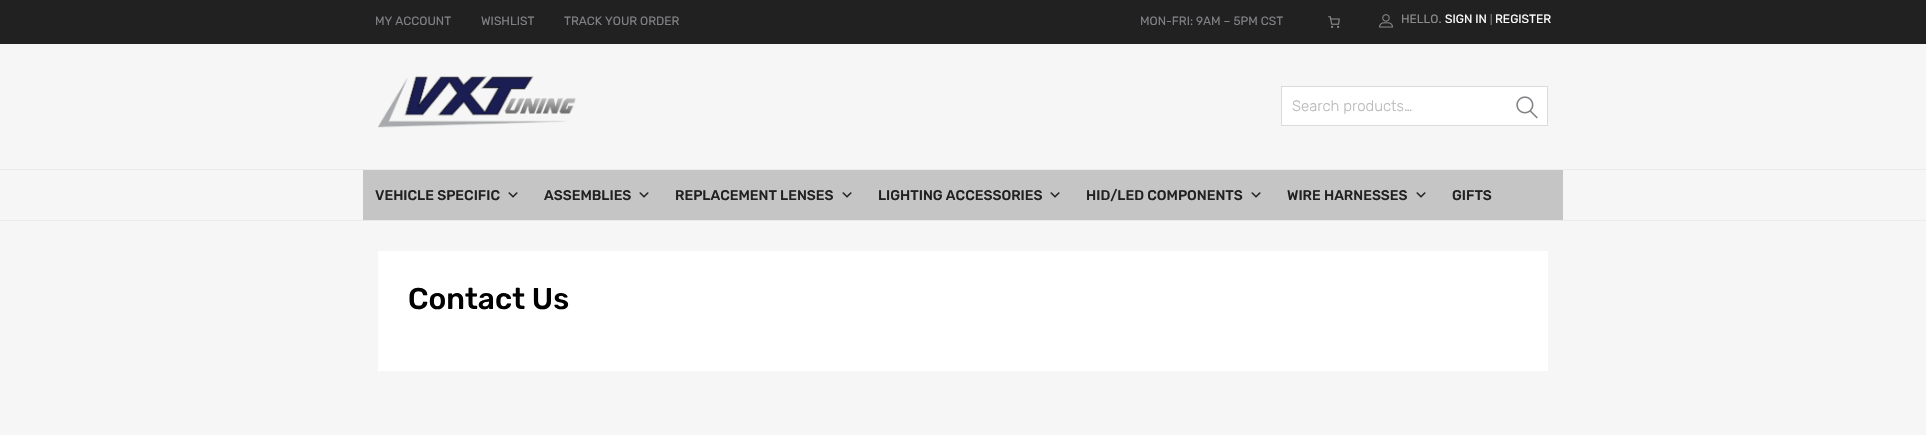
#include "include/core/SkBlurTypes.h"
#include "include/core/SkCanvas.h"
#include "include/core/SkData.h"
#include "include/core/SkFont.h"
#include "include/core/SkFontMgr.h"
#include "include/core/SkImage.h"
#include "include/core/SkMaskFilter.h"
#include "include/core/SkPaint.h"
#include "include/core/SkPathBuilder.h"
#include "include/core/SkTextBlob.h"
#include "include/effects/SkDashPathEffect.h"
#include "include/effects/SkGradientShader.h"
#include "include/utils/SkParsePath.h"

extern sk_sp<SkFontMgr> fontMgr;

static SkFont font(const char* family, int weight, float size, bool italic = false) {
    SkFontStyle style(weight, SkFontStyle::kNormal_Width,
        italic ? SkFontStyle::kItalic_Slant : SkFontStyle::kUpright_Slant);
    SkFont result(fontMgr->matchFamilyStyle(family, style), size);
    result.setSubpixel(true);
    return result;
}

static void drawLabel(SkCanvas* canvas, const char* s, float x, float y, const SkFont& font, SkColor color) {
    SkPaint ink(SkColor4f::FromColor(color));
    ink.setAntiAlias(true);
    canvas->drawString(s, x, y, font, ink);
}

static void fillRect(SkCanvas* canvas, float x, float y, float w, float h, SkColor color) {
    SkPaint ink(SkColor4f::FromColor(color));
    ink.setAntiAlias(true);
    canvas->drawRect(SkRect::MakeXYWH(x, y, w, h), ink);
}

static void drawPhoto(SkCanvas* canvas, const char* path, float x, float y, float w, float h) {
    auto image = SkImages::DeferredFromEncodedData(SkData::MakeFromFileName(path));
    canvas->drawImageRect(image, SkRect::MakeXYWH(x, y, w, h), SkSamplingOptions());
}

void draw(SkCanvas* canvas) {
    SkPaint paint;
    paint.setAntiAlias(true);
    canvas->clear(0xFFF6F6F6);
    fillRect(canvas, 0, 0, 1926, 44, 0xFF212121);
    SkFont font1 = font("Rubik", 400, 12);
    drawLabel(canvas, "MY ACCOUNT", 375, 25, font1, 0xFF818185);
    drawLabel(canvas, "WISHLIST", 481, 25, font1, 0xFF818185);
    drawLabel(canvas, "TRACK YOUR ORDER", 564, 25, font1, 0xFF818185);
    drawLabel(canvas, "MON-FRI: 9AM – 5PM CST", 1140, 25, font1, 0xFF818185);
    drawPhoto(canvas, "assets/img1.png", 1328, 16, 12, 12);
    drawPhoto(canvas, "assets/img2.png", 1379, 14, 14, 14);
    drawLabel(canvas, "HELLO.", 1401, 23, font1, 0xFF8B8B8B);
    drawLabel(canvas, "SIGN IN", 1445, 23, font1, 0xFFFFFFFF);
    SkFont font2 = font("Rubik", 400, 10);
    drawLabel(canvas, "|", 1490, 23, font2, 0xFF8B8B8B);
    drawLabel(canvas, "REGISTER", 1495, 23, font1, 0xFFFFFFFF);
    drawPhoto(canvas, "assets/img3.png", 378, 76, 198, 52);
    paint.setColor(0xFFFFFFFF);
    canvas->drawRect(SkRect::MakeXYWH(1281.5f, 86.5f, 266, 39), paint);
    paint.setStroke(true);
    paint.setStrokeWidth(1);
    paint.setColor(0xFFDBDBDB);
    canvas->drawRect(SkRect::MakeXYWH(1281.5f, 86.5f, 266, 39), paint);
    SkFont font3 = font("Rubik", 300, 15);
    drawLabel(canvas, "Search products…", 1292, 111, font3, 0xFFB9B9B9);
    drawPhoto(canvas, "assets/img4.png", 1516, 96, 22, 23);
    fillRect(canvas, 0, 169, 1926, 1, 0xFFEBEBEB);
    fillRect(canvas, 0, 220, 1926, 1, 0xFFEBEBEB);
    fillRect(canvas, 363, 170, 1200, 50, 0xFFC5C5C5);
    SkFont font4 = font("Rubik", 500, 14);
    drawLabel(canvas, "VEHICLE SPECIFIC", 375, 200, font4, 0xFF212121);
    drawPhoto(canvas, "assets/img5.png", 508, 192, 10, 6);
    drawLabel(canvas, "ASSEMBLIES", 544, 200, font4, 0xFF212121);
    drawPhoto(canvas, "assets/img5.png", 639, 192, 10, 6);
    drawLabel(canvas, "REPLACEMENT LENSES", 675, 200, font4, 0xFF212121);
    drawPhoto(canvas, "assets/img5.png", 842, 192, 10, 6);
    drawLabel(canvas, "LIGHTING ACCESSORIES", 878, 200, font4, 0xFF212121);
    drawPhoto(canvas, "assets/img5.png", 1050, 192, 10, 6);
    drawLabel(canvas, "HID/LED COMPONENTS", 1086, 200, font4, 0xFF212121);
    drawPhoto(canvas, "assets/img5.png", 1251, 192, 10, 6);
    drawLabel(canvas, "WIRE HARNESSES", 1287, 200, font4, 0xFF212121);
    drawPhoto(canvas, "assets/img5.png", 1416, 192, 10, 6);
    drawLabel(canvas, "GIFTS", 1452, 200, font4, 0xFF212121);
    fillRect(canvas, 378, 251, 1170, 120, 0xFFFFFFFF);
    SkFont font5 = font("Rubik", 500, 30);
    drawLabel(canvas, "Contact Us", 408, 309, font5, 0xFF000000);
}
